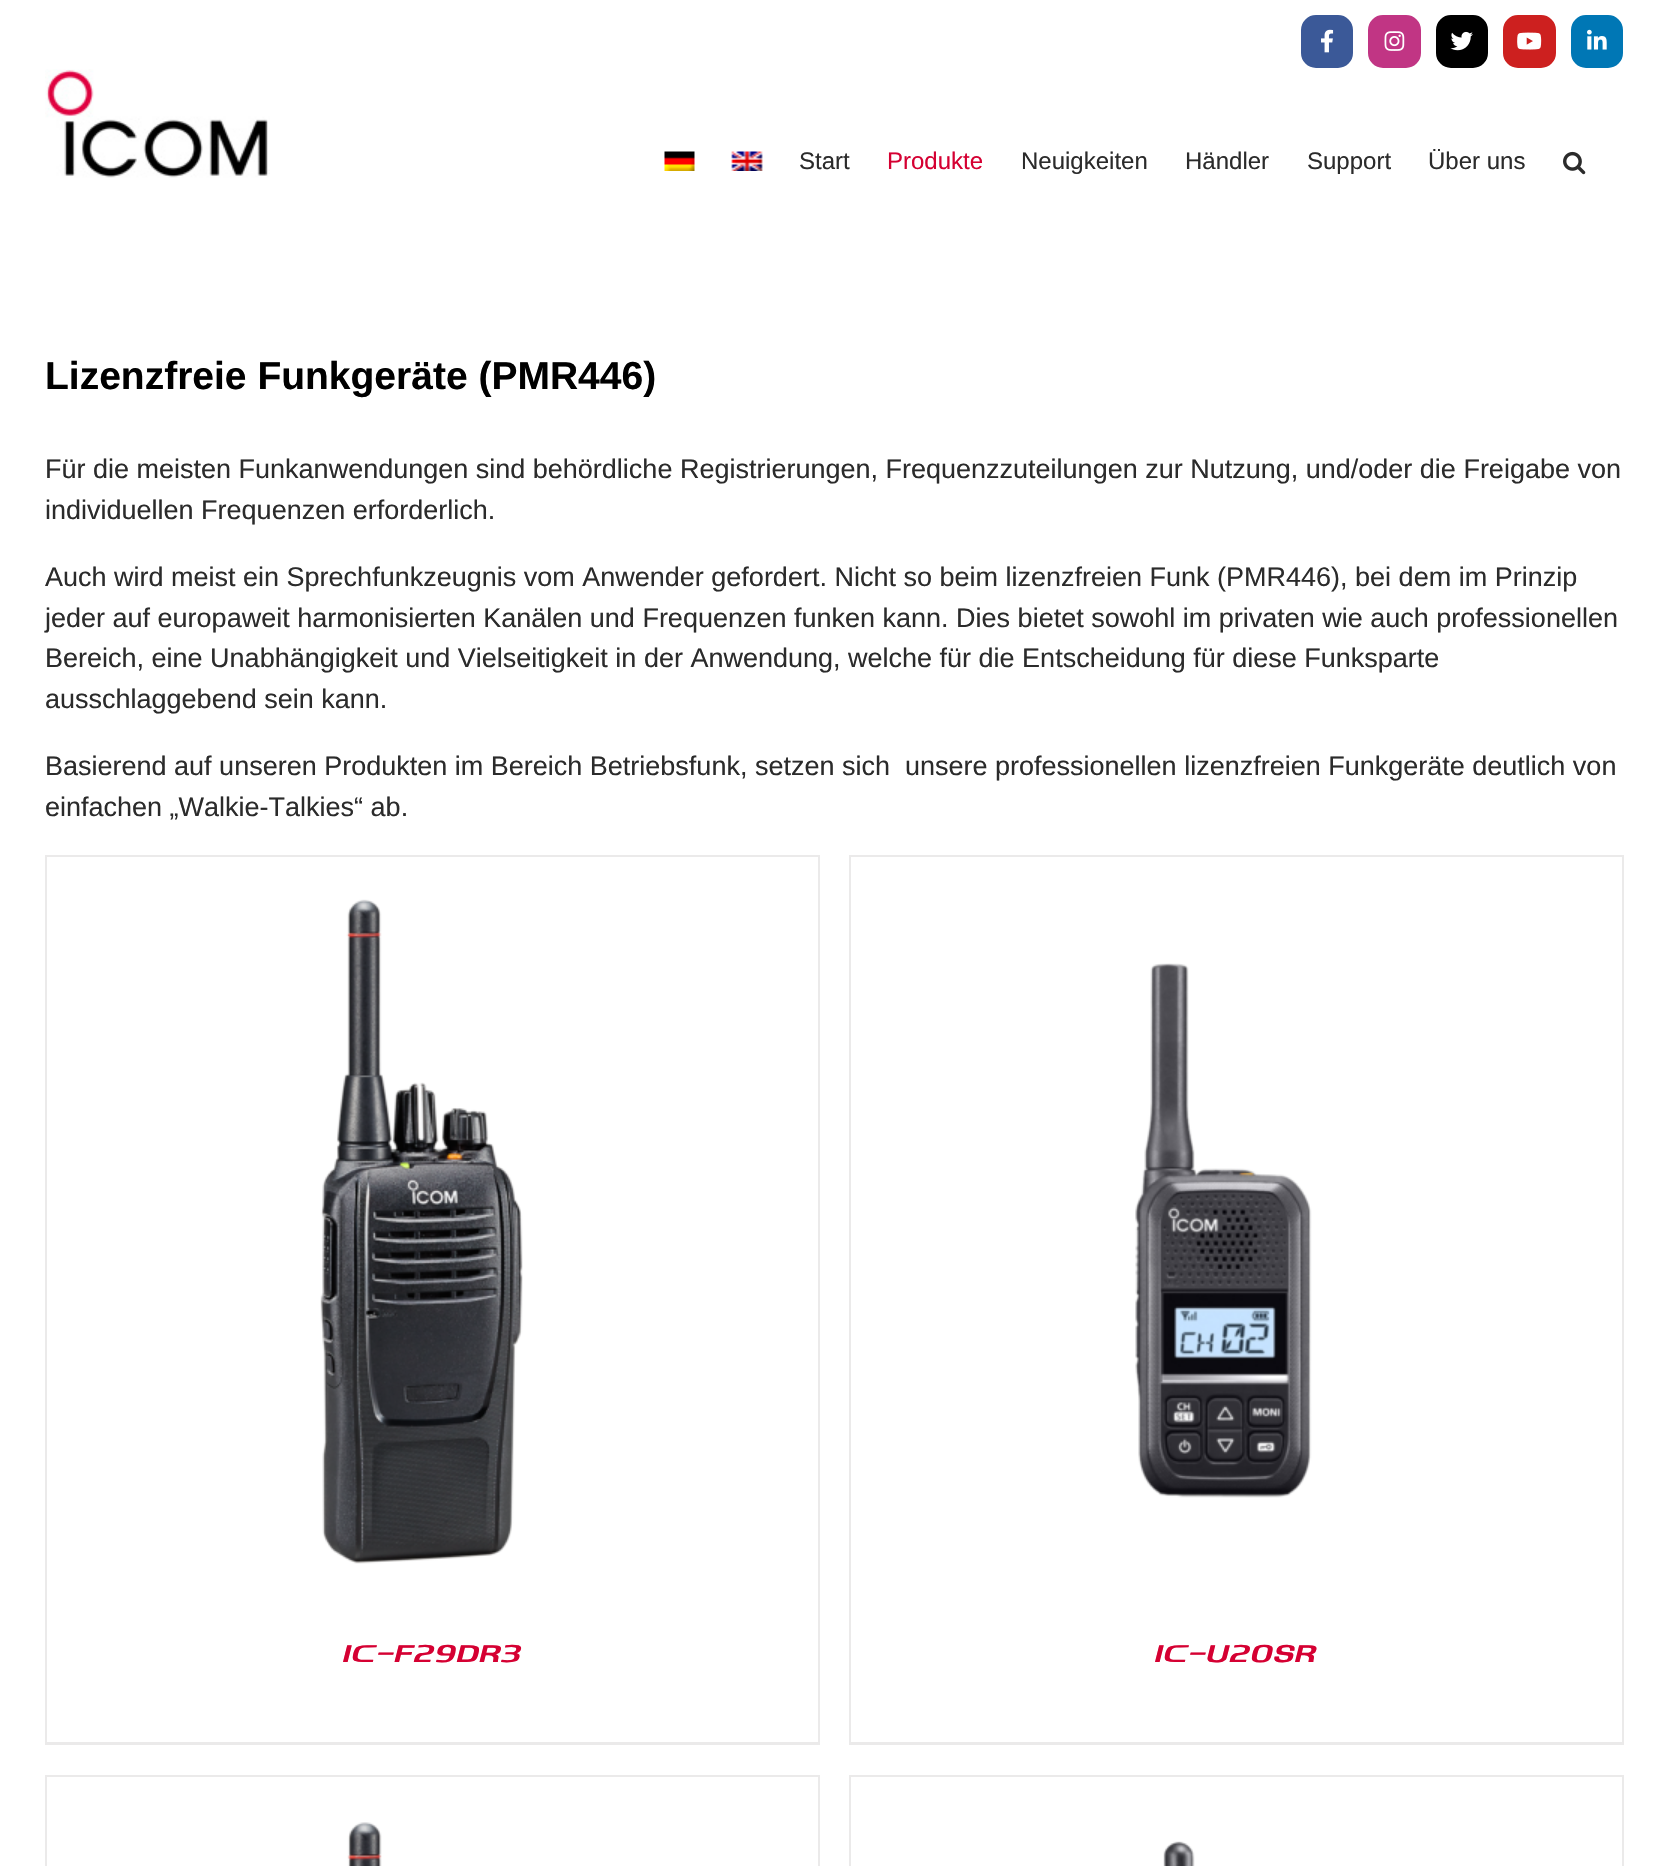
#include "include/core/SkBlurTypes.h"
#include "include/core/SkCanvas.h"
#include "include/core/SkData.h"
#include "include/core/SkFont.h"
#include "include/core/SkFontMgr.h"
#include "include/core/SkImage.h"
#include "include/core/SkMaskFilter.h"
#include "include/core/SkPaint.h"
#include "include/core/SkPathBuilder.h"
#include "include/core/SkTextBlob.h"
#include "include/effects/SkDashPathEffect.h"
#include "include/effects/SkGradientShader.h"
#include "include/utils/SkParsePath.h"

extern sk_sp<SkFontMgr> fontMgr;

static SkFont font(const char* family, int weight, float size, bool italic = false) {
    SkFontStyle style(weight, SkFontStyle::kNormal_Width,
        italic ? SkFontStyle::kItalic_Slant : SkFontStyle::kUpright_Slant);
    SkFont result(fontMgr->matchFamilyStyle(family, style), size);
    result.setSubpixel(true);
    return result;
}

static void drawLabel(SkCanvas* canvas, const char* s, float x, float y, const SkFont& font, SkColor color) {
    SkPaint ink(SkColor4f::FromColor(color));
    ink.setAntiAlias(true);
    canvas->drawString(s, x, y, font, ink);
}

static void fillRect(SkCanvas* canvas, float x, float y, float w, float h, SkColor color) {
    SkPaint ink(SkColor4f::FromColor(color));
    ink.setAntiAlias(true);
    canvas->drawRect(SkRect::MakeXYWH(x, y, w, h), ink);
}

static void drawPhoto(SkCanvas* canvas, const char* path, float x, float y, float w, float h) {
    auto image = SkImages::DeferredFromEncodedData(SkData::MakeFromFileName(path));
    canvas->drawImageRect(image, SkRect::MakeXYWH(x, y, w, h), SkSamplingOptions());
}

void draw(SkCanvas* canvas) {
    SkPaint paint;
    paint.setAntiAlias(true);
    canvas->clear(0xFFFFFFFF);
    paint.setColor(0xFF3B5998);
    canvas->drawRoundRect(SkRect::MakeXYWH(1302, 16, 50, 51), 14, 14, paint);
    paint.setStroke(true);
    paint.setStrokeWidth(2);
    canvas->drawRoundRect(SkRect::MakeXYWH(1302, 16, 50, 51), 14, 14, paint);
    drawPhoto(canvas, "assets/img1.png", 1321, 29, 13, 24);
    paint.setStroke(false);
    paint.setColor(0xFFC13584);
    canvas->drawRoundRect(SkRect::MakeXYWH(1369, 16, 51, 51), 14, 14, paint);
    paint.setStroke(true);
    canvas->drawRoundRect(SkRect::MakeXYWH(1369, 16, 51, 51), 14, 14, paint);
    drawPhoto(canvas, "assets/img2.png", 1384, 31, 21, 20);
    paint.setStroke(false);
    paint.setColor(0xFF000000);
    canvas->drawRoundRect(SkRect::MakeXYWH(1437, 16, 50, 51), 14, 14, paint);
    paint.setStroke(true);
    canvas->drawRoundRect(SkRect::MakeXYWH(1437, 16, 50, 51), 14, 14, paint);
    drawPhoto(canvas, "assets/img3.png", 1450, 31, 23, 20);
    paint.setStroke(false);
    paint.setColor(0xFFCD201F);
    canvas->drawRoundRect(SkRect::MakeXYWH(1504, 16, 51, 51), 14, 14, paint);
    paint.setStroke(true);
    canvas->drawRoundRect(SkRect::MakeXYWH(1504, 16, 51, 51), 14, 14, paint);
    drawPhoto(canvas, "assets/img4.png", 1517, 32, 25, 18);
    paint.setStroke(false);
    paint.setColor(0xFF0077B5);
    canvas->drawRoundRect(SkRect::MakeXYWH(1572, 16, 50, 51), 14, 14, paint);
    paint.setStroke(true);
    canvas->drawRoundRect(SkRect::MakeXYWH(1572, 16, 50, 51), 14, 14, paint);
    drawPhoto(canvas, "assets/img5.png", 1587, 29, 20, 21);
    drawPhoto(canvas, "assets/img6.png", 45, 69, 225, 109);
    drawPhoto(canvas, "assets/img7.png", 664, 151, 31, 20);
    drawPhoto(canvas, "assets/img8.png", 731, 151, 32, 20);
    SkFont font1 = font("Liberation Sans", 400, 24);
    drawLabel(canvas, "Start", 799, 169, font1, 0xFF2B2B2B);
    drawLabel(canvas, "Produkte", 887, 169, font1, 0xFFD50032);
    drawLabel(canvas, "Neuigkeiten", 1021, 169, font1, 0xFF2B2B2B);
    drawLabel(canvas, "Händler", 1185, 169, font1, 0xFF2B2B2B);
    drawLabel(canvas, "Support", 1307, 169, font1, 0xFF2B2B2B);
    drawLabel(canvas, "Über uns", 1428, 169, font1, 0xFF2B2B2B);
    drawPhoto(canvas, "assets/img9.png", 1563, 151, 23, 24);
    SkFont font2 = font("Liberation Sans", 700, 39);
    drawLabel(canvas, "Lizenzfreie Funkgeräte (PMR446)", 45, 389, font2, 0xFF000000);
    SkFont font3 = font("Liberation Sans", 400, 27);
    drawLabel(canvas, "Für die meisten Funkanwendungen sind behördliche Registrierungen, Frequenzzuteilungen zur Nutzung, und/oder die Freigabe von", 45, 478, font3, 0xFF2B2B2B);
    drawLabel(canvas, "individuellen Frequenzen erforderlich.", 45, 519, font3, 0xFF2B2B2B);
    drawLabel(canvas, "Auch wird meist ein Sprechfunkzeugnis vom Anwender gefordert. Nicht so beim lizenzfreien Funk (PMR446), bei dem im Prinzip", 45, 586, font3, 0xFF2B2B2B);
    drawLabel(canvas, "jeder auf europaweit harmonisierten Kanälen und Frequenzen funken kann. Dies bietet sowohl im privaten wie auch professionellen", 45, 627, font3, 0xFF2B2B2B);
    drawLabel(canvas, "Bereich, eine Unabhängigkeit und Vielseitigkeit in der Anwendung, welche für die Entscheidung für diese Funksparte", 45, 667, font3, 0xFF2B2B2B);
    drawLabel(canvas, "ausschlaggebend sein kann.", 45, 708, font3, 0xFF2B2B2B);
    drawLabel(canvas, "Basierend auf unseren Produkten im Bereich Betriebsfunk, setzen sich  unsere professionellen lizenzfreien Funkgeräte deutlich von", 45, 775, font3, 0xFF2B2B2B);
    drawLabel(canvas, "einfachen „Walkie-Talkies“ ab.", 45, 816, font3, 0xFF2B2B2B);
    fillRect(canvas, 45, 855, 774, 2, 0xFFEBEAEA);
    fillRect(canvas, 818, 855, 2, 890, 0xFFEBEAEA);
    fillRect(canvas, 45, 1742, 774, 3, 0xFFEBEAEA);
    fillRect(canvas, 45, 855, 2, 890, 0xFFEBEAEA);
    drawPhoto(canvas, "assets/img10.png", 320, 899, 203, 665);
    SkFont font4 = font("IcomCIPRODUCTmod", 500, 21, true);
    drawLabel(canvas, "IC-F29DR3", 343, 1662, font4, 0xFFD50032);
    fillRect(canvas, 849, 855, 774, 2, 0xFFEBEAEA);
    fillRect(canvas, 1622, 855, 2, 890, 0xFFEBEAEA);
    fillRect(canvas, 849, 1742, 774, 3, 0xFFEBEAEA);
    fillRect(canvas, 849, 855, 2, 890, 0xFFEBEAEA);
    drawPhoto(canvas, "assets/img11.png", 1135, 963, 177, 535);
    drawLabel(canvas, "IC-U20SR", 1155, 1662, font4, 0xFFD50032);
    fillRect(canvas, 45, 1775, 774, 2, 0xFFEBEAEA);
    fillRect(canvas, 818, 1775, 2, 91, 0xFFEBEAEA);
    fillRect(canvas, 45, 1775, 2, 91, 0xFFEBEAEA);
    drawPhoto(canvas, "assets/img12.png", 347, 1822, 35, 44);
    fillRect(canvas, 849, 1775, 774, 2, 0xFFEBEAEA);
    fillRect(canvas, 1622, 1775, 2, 91, 0xFFEBEAEA);
    fillRect(canvas, 849, 1775, 2, 91, 0xFFEBEAEA);
    drawPhoto(canvas, "assets/img13.png", 1163, 1841, 32, 25);
}
